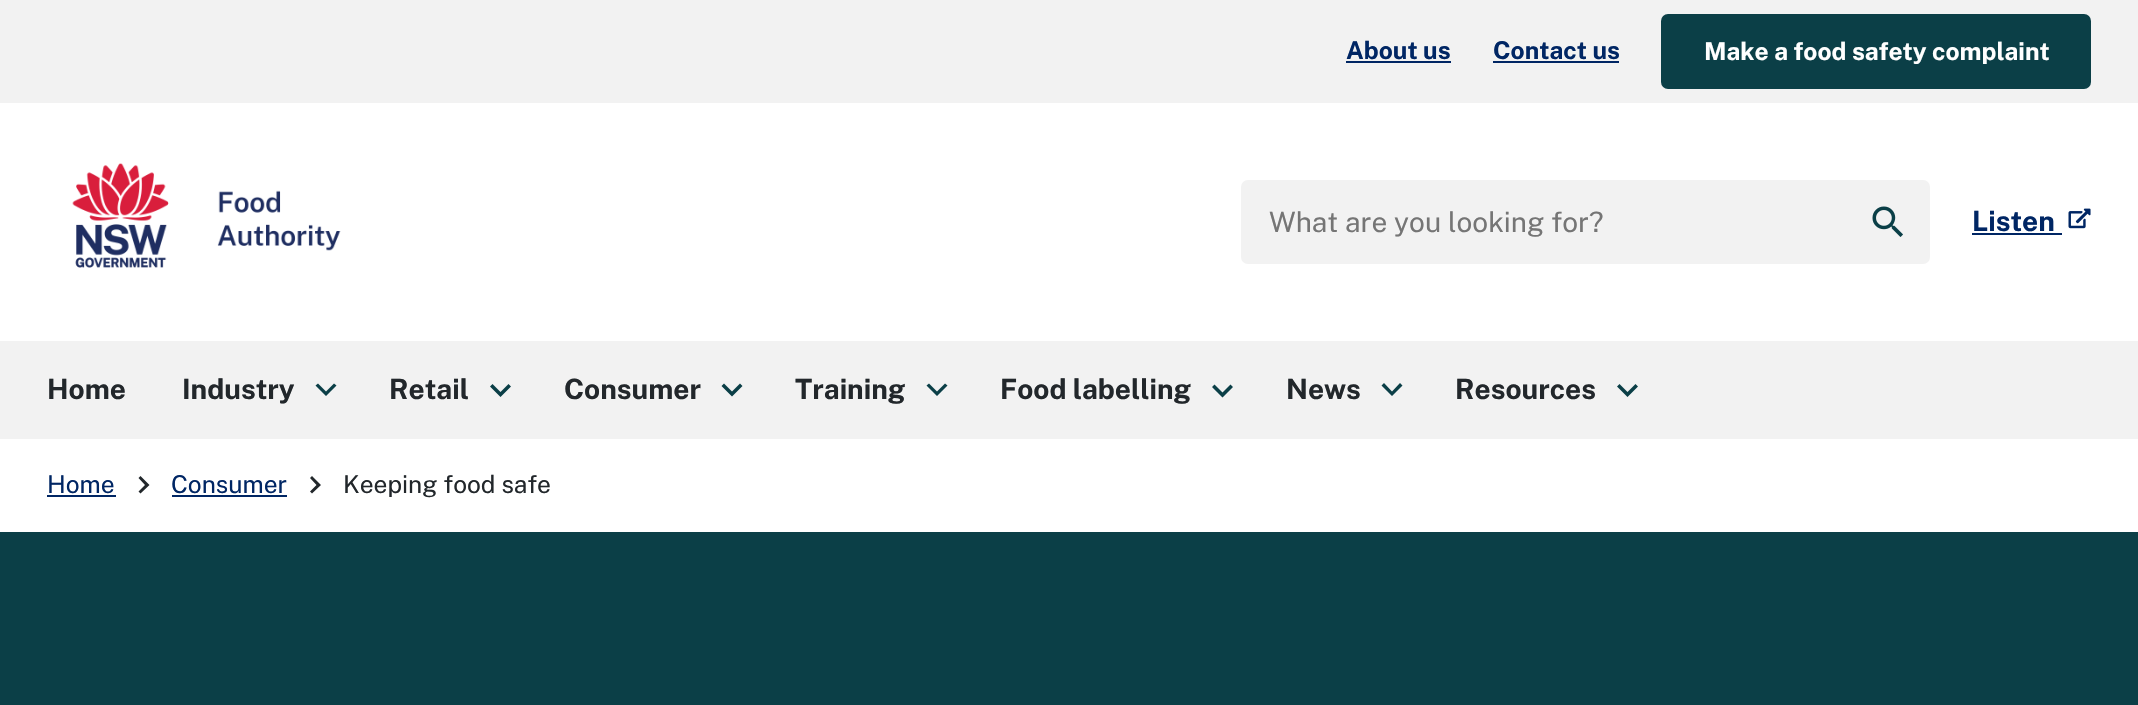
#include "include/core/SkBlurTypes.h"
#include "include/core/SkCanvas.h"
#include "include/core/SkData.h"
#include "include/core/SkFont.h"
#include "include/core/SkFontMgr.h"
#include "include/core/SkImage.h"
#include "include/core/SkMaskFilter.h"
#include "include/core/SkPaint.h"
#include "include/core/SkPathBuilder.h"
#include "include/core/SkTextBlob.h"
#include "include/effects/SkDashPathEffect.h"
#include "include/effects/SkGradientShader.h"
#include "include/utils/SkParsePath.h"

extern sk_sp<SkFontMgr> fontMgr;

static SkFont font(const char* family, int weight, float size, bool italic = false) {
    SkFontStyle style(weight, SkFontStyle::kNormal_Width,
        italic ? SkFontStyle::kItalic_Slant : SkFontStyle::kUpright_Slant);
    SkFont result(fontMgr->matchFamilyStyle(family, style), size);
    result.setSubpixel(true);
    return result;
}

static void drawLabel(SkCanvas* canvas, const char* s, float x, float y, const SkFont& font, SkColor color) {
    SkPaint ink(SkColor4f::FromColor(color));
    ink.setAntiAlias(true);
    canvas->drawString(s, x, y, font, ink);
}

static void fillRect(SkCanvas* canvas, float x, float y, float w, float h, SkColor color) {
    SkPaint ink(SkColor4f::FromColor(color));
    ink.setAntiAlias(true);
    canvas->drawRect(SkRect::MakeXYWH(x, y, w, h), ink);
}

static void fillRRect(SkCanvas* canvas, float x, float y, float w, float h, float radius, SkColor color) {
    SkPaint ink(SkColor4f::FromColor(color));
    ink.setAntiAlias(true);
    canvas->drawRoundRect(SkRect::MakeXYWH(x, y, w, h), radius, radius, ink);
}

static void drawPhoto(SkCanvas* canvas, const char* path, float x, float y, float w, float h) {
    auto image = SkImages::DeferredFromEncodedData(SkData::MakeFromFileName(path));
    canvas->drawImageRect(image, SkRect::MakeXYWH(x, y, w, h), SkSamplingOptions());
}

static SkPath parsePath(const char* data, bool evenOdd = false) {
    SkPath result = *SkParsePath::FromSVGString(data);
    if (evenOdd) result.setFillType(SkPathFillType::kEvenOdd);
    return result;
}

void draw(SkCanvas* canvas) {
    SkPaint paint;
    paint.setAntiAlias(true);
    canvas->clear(0xFFFFFFFF);
    fillRect(canvas, 0, 0, 2138, 103, 0xFFF2F2F2);
    SkFont font1 = font("Public Sans", 700, 24.5f);
    drawLabel(canvas, "About us", 1346, 59, font1, 0xFF002664);
    fillRect(canvas, 1346, 61, 105, 2, 0xFF002664);
    drawLabel(canvas, "Contact us", 1493, 59, font1, 0xFF002664);
    fillRect(canvas, 1493, 61, 126, 2, 0xFF002664);
    fillRRect(canvas, 1661, 14, 430, 75, 7, 0xFF0B3F47);
    drawLabel(canvas, "Make a food safety complaint", 1704, 60, font1, 0xFFFFFFFF);
    drawPhoto(canvas, "assets/img1.png", 72, 163, 269, 105);
    fillRRect(canvas, 1241, 180, 689, 84, 7, 0xFFF2F2F2);
    SkFont font2 = font("Public Sans", 400, 28);
    drawLabel(canvas, "What are you looking for?", 1269, 232, font2, 0xFF757575);
    drawPhoto(canvas, "assets/img2.png", 1872, 206, 31, 31);
    SkFont font3 = font("Public Sans", 700, 28);
    drawLabel(canvas, "Listen", 1972, 231, font3, 0xFF002664);
    fillRect(canvas, 1972, 233, 90, 2, 0xFF002664);
    drawPhoto(canvas, "assets/img3.png", 2068, 208, 23, 21);
    fillRect(canvas, 0, 341, 2138, 98, 0xFFF2F2F2);
    drawLabel(canvas, "Home", 47, 399, font3, 0xFF22272B);
    drawLabel(canvas, "Industry", 182, 399, font3, 0xFF22272B);
    paint.setColor(0xFF0B3F47);
    canvas->drawPath(parsePath("M318 383.5L326 391.5L334 383.5L336.5 385.5L326 396L315.5 385.5Z"), paint);
    drawLabel(canvas, "Retail", 389, 399, font3, 0xFF22272B);
    canvas->drawPath(parsePath("M492.5 384L500.5 392L508.5 384L511 386.5L500.5 397L490 386.5Z"), paint);
    drawLabel(canvas, "Consumer", 564, 399, font3, 0xFF22272B);
    canvas->drawPath(parsePath("M724 383.5L732 391.5L740 383.5L742.5 386L732 396.5L721.5 386Z"), paint);
    drawLabel(canvas, "Training", 795, 399, font3, 0xFF22272B);
    canvas->drawPath(parsePath("M929 383.5L937 391.5L945 383.5L947.5 385.5L937 396L926.5 385.5Z"), paint);
    drawLabel(canvas, "Food labelling", 1000, 399, font3, 0xFF22272B);
    canvas->drawPath(parsePath("M1214.5 384.5L1222.5 392.5L1230.5 384.5L1233 387L1222.5 397.5L1212 387Z"), paint);
    drawLabel(canvas, "News", 1286, 399, font3, 0xFF22272B);
    canvas->drawPath(parsePath("M1384 383L1392 391.5L1400 383L1402.5 385.5L1392 396L1381.5 385.5Z"), paint);
    drawLabel(canvas, "Resources", 1455, 399, font3, 0xFF22272B);
    canvas->drawPath(parsePath("M1619.5 384L1627.5 392L1635.5 384L1638 386.5L1627.5 397L1617 386.5Z"), paint);
    SkFont font4 = font("Public Sans", 400, 24.5f);
    drawLabel(canvas, "Home", 47, 493, font4, 0xFF002664);
    fillRect(canvas, 47, 495, 69, 2, 0xFF002664);
    paint.setColor(0xFF22272B);
    canvas->drawPath(parsePath("M138.5 491.5L145 485L138.5 478L140.5 476L149.5 485L140.5 493.5Z"), paint);
    drawLabel(canvas, "Consumer", 171, 493, font4, 0xFF002664);
    fillRect(canvas, 172, 495, 115, 2, 0xFF002664);
    canvas->drawPath(parsePath("M310 491.5L316.5 485L310 478L312 476L321 485L312 493.5Z"), paint);
    drawLabel(canvas, "Keeping food safe", 343, 493, font4, 0xFF22272B);
    fillRect(canvas, 0, 532, 2138, 173, 0xFF0B3F47);
}
